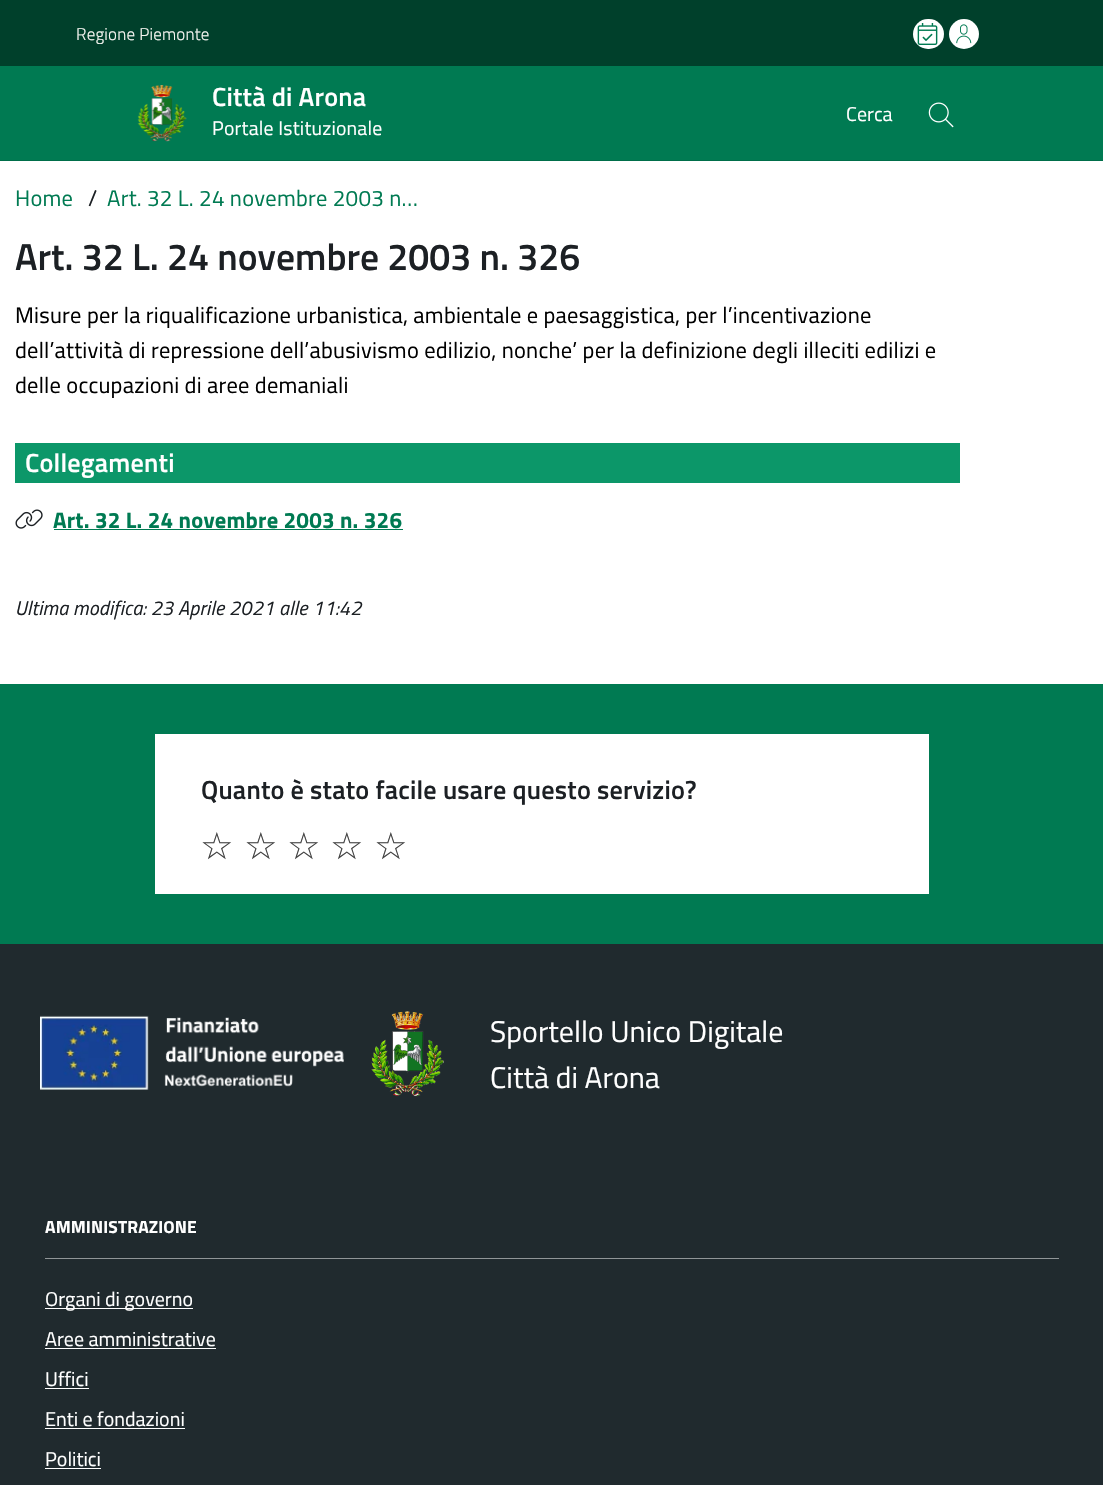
#include "include/core/SkBlurTypes.h"
#include "include/core/SkCanvas.h"
#include "include/core/SkData.h"
#include "include/core/SkFont.h"
#include "include/core/SkFontMgr.h"
#include "include/core/SkImage.h"
#include "include/core/SkMaskFilter.h"
#include "include/core/SkPaint.h"
#include "include/core/SkPathBuilder.h"
#include "include/core/SkTextBlob.h"
#include "include/effects/SkDashPathEffect.h"
#include "include/effects/SkGradientShader.h"
#include "include/utils/SkParsePath.h"

extern sk_sp<SkFontMgr> fontMgr;

static SkFont font(const char* family, int weight, float size, bool italic = false) {
    SkFontStyle style(weight, SkFontStyle::kNormal_Width,
        italic ? SkFontStyle::kItalic_Slant : SkFontStyle::kUpright_Slant);
    SkFont result(fontMgr->matchFamilyStyle(family, style), size);
    result.setSubpixel(true);
    return result;
}

static void drawLabel(SkCanvas* canvas, const char* s, float x, float y, const SkFont& font, SkColor color) {
    SkPaint ink(SkColor4f::FromColor(color));
    ink.setAntiAlias(true);
    canvas->drawString(s, x, y, font, ink);
}

static void drawTracked(SkCanvas* canvas, const char* s, float x, float y, const SkFont& font, const SkPaint& ink, float letter, float word) {
    std::vector<SkGlyphID> glyphs(font.countText(s, strlen(s), SkTextEncoding::kUTF8));
    std::vector<float> xs(glyphs.size());
    font.textToGlyphs(s, strlen(s), SkTextEncoding::kUTF8, glyphs);
    font.getXPos(glyphs, xs, x);
    float extra = 0;
    for (size_t i = 0; i < glyphs.size(); i++) {
        xs[i] += extra;
        extra += letter + word * (glyphs[i] == font.unicharToGlyph(' '));
    }
    canvas->drawTextBlob(SkTextBlob::MakeFromPosHGlyphs(glyphs, xs, y, font), 0, 0, ink);
}

static void fillRect(SkCanvas* canvas, float x, float y, float w, float h, SkColor color) {
    SkPaint ink(SkColor4f::FromColor(color));
    ink.setAntiAlias(true);
    canvas->drawRect(SkRect::MakeXYWH(x, y, w, h), ink);
}

static void fillRRect(SkCanvas* canvas, float x, float y, float w, float h, float radius, SkColor color) {
    SkPaint ink(SkColor4f::FromColor(color));
    ink.setAntiAlias(true);
    canvas->drawRoundRect(SkRect::MakeXYWH(x, y, w, h), radius, radius, ink);
}

static void drawPhoto(SkCanvas* canvas, const char* path, float x, float y, float w, float h) {
    auto image = SkImages::DeferredFromEncodedData(SkData::MakeFromFileName(path));
    canvas->drawImageRect(image, SkRect::MakeXYWH(x, y, w, h), SkSamplingOptions());
}

void draw(SkCanvas* canvas) {
    SkPaint paint;
    paint.setAntiAlias(true);
    canvas->clear(0xFFFFFFFF);
    fillRect(canvas, 0, 0, 1103, 66, 0xFF00402B);
    SkFont font1 = font("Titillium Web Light", 300, 17);
    paint.setColor(0xFFF5F5F0);
    drawTracked(canvas, "Regione Piemonte", 76, 40, font1, paint, 0.2f, 0);
    fillRRect(canvas, 913, 19, 31, 30, 15, 0xFFFFFFFF);
    drawPhoto(canvas, "assets/img1.png", 917, 23, 21, 22);
    paint.setColor(0xFFFFFFFF);
    canvas->drawCircle(964, 34, 15, paint);
    drawPhoto(canvas, "assets/img2.png", 956, 24, 16, 20);
    fillRect(canvas, 0, 66, 1103, 94, 0xFF007A52);
    fillRect(canvas, 0, 160, 1103, 1, 0xFF006E4A);
    drawPhoto(canvas, "assets/img3.png", 137, 85, 50, 57);
    SkFont font2 = font("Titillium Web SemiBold", 600, 26.25f);
    drawTracked(canvas, "Città di Arona", 212, 106, font2, paint, 0.2f, 0);
    SkFont font3 = font("Titillium Web", 400, 19.75f);
    drawTracked(canvas, "Portale Istituzionale", 212, 135, font3, paint, 0.2f, 0);
    SkFont font4 = font("Titillium Web", 400, 20);
    drawLabel(canvas, "Cerca", 846, 121, font4, 0xFFFFFFFF);
    drawPhoto(canvas, "assets/img4.png", 928, 102, 26, 26);
    SkFont font5 = font("Titillium Web", 400, 22.5f);
    paint.setColor(0xFF007A52);
    drawTracked(canvas, "Home", 15, 206, font5, paint, 0.22f, 0);
    drawLabel(canvas, "/", 88, 206, font5, 0xFF1C2024);
    drawTracked(canvas, "Art. 32 L. 24 novembre 2003 n…", 107, 206, font5, paint, 0.22f, 0);
    SkFont font6 = font("Titillium Web SemiBold", 600, 37.5f);
    drawLabel(canvas, "Art. 32 L. 24 novembre 2003 n. 326", 15, 270, font6, 0xFF1C2024);
    paint.setColor(0xFF000000);
    drawTracked(canvas, "Misure per la riqualificazione urbanistica, ambientale e paesaggistica, per l’incentivazione", 15, 323, font5, paint, 0.22f, 0);
    drawTracked(canvas, "dell’attività di repressione dell’abusivismo edilizio, nonche’ per la definizione degli illeciti edilizi e", 15, 358, font5, paint, 0.22f, 0);
    drawTracked(canvas, "delle occupazioni di aree demaniali", 15, 393, font5, paint, 0.22f, 0);
    fillRect(canvas, 15, 443, 945, 40, 0xFF0C9769);
    paint.setColor(0xFFFFFFFF);
    drawTracked(canvas, "Collegamenti", 25, 472, font2, paint, 0.2f, 0);
    drawPhoto(canvas, "assets/img5.png", 15, 509, 28, 20);
    SkFont font7 = font("Titillium Web", 700, 22.5f);
    paint.setColor(0xFF007A52);
    drawTracked(canvas, "Art. 32 L. 24 novembre 2003 n. 326", 53, 528, font7, paint, 0.22f, 0);
    fillRect(canvas, 54, 529, 349, 1, 0xFF007A52);
    SkFont font8 = font("Titillium Web", 400, 20, true);
    paint.setColor(0xFF1C2024);
    drawTracked(canvas, "Ultima modifica: 23 Aprile 2021 alle 11:42", 15, 615, font8, paint, 0.2f, 0);
    fillRect(canvas, 0, 684, 1103, 260, 0xFF007A52);
    fillRect(canvas, 155, 734, 774, 160, 0xFFFFFFFF);
    drawTracked(canvas, "Quanto è stato facile usare questo servizio?", 201, 799, font2, paint, 0.2f, 0);
    SkFont font9 = font("DejaVu Sans", 400, 37.5f);
    drawLabel(canvas, "☆", 200, 859, font9, 0xFF444444);
    drawLabel(canvas, "☆", 244, 859, font9, 0xFF444444);
    drawLabel(canvas, "☆", 287, 859, font9, 0xFF444444);
    drawLabel(canvas, "☆", 330, 859, font9, 0xFF444444);
    drawLabel(canvas, "☆", 374, 859, font9, 0xFF444444);
    fillRect(canvas, 0, 944, 1103, 541, 0xFF202A2E);
    drawPhoto(canvas, "assets/img6.png", 40, 1015, 304, 75);
    drawPhoto(canvas, "assets/img7.png", 371, 1011, 73, 86);
    SkFont font10 = font("Titillium Web", 400, 30);
    drawLabel(canvas, "Sportello Unico Digitale", 490, 1042, font10, 0xFFFFFFFF);
    drawLabel(canvas, "Città di Arona", 490, 1088, font10, 0xFFFFFFFF);
    fillRect(canvas, 45, 1258, 1014, 1, 0xFF909597);
    SkFont font11 = font("Titillium Web", 700, 17.5f);
    paint.setColor(0xFFFFFFFF);
    drawTracked(canvas, "AMMINISTRAZIONE", 45, 1233, font11, paint, 0.1f, 0);
    fillRect(canvas, 45, 1308, 148, 1, 0xFFFFFFFF);
    drawLabel(canvas, "Organi di governo", 45, 1306, font4, 0xFFFFFFFF);
    drawLabel(canvas, "Aree amministrative", 45, 1346, font4, 0xFFFFFFFF);
    fillRect(canvas, 45, 1348, 171, 1, 0xFFFFFFFF);
    drawLabel(canvas, "Uffici", 45, 1386, font4, 0xFFFFFFFF);
    fillRect(canvas, 45, 1388, 44, 1, 0xFFFFFFFF);
    drawLabel(canvas, "Enti e fondazioni", 45, 1426, font4, 0xFFFFFFFF);
    fillRect(canvas, 45, 1428, 140, 1, 0xFFFFFFFF);
    drawLabel(canvas, "Politici", 45, 1466, font4, 0xFFFFFFFF);
    fillRect(canvas, 45, 1468, 56, 1, 0xFFFFFFFF);
}
